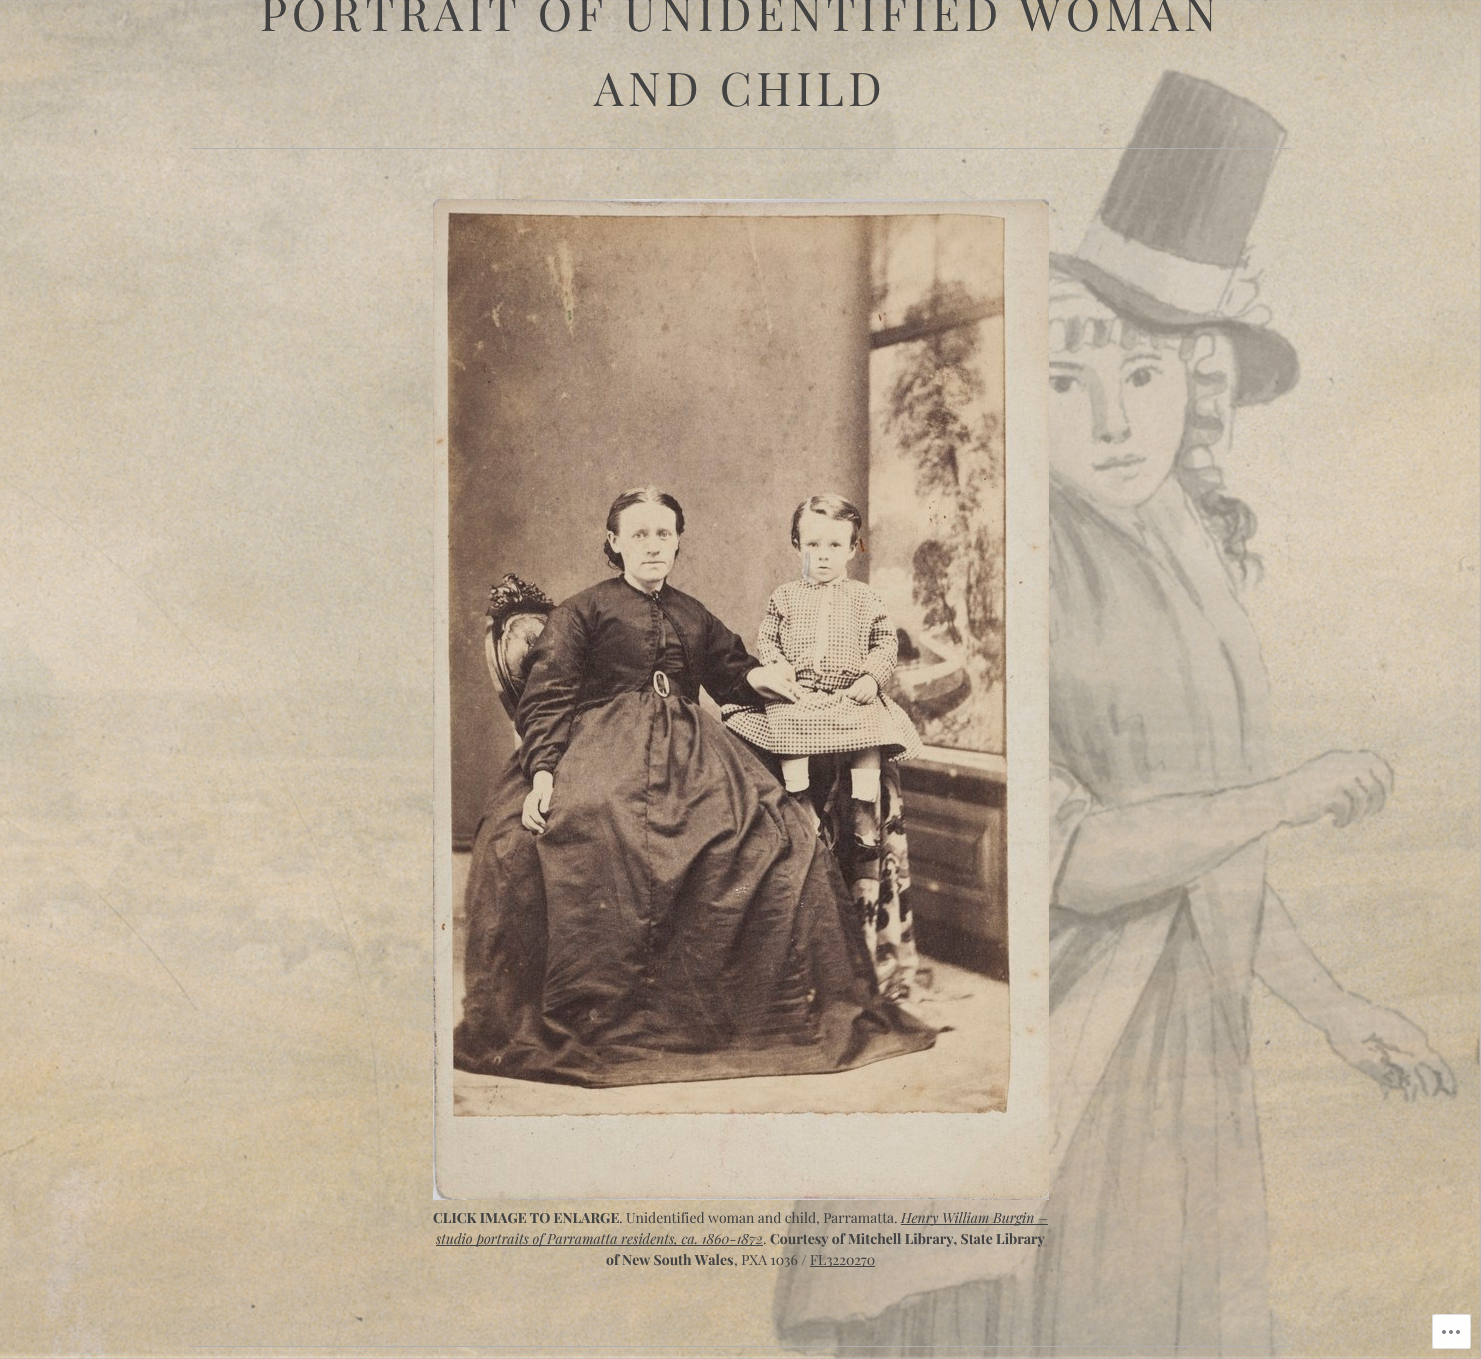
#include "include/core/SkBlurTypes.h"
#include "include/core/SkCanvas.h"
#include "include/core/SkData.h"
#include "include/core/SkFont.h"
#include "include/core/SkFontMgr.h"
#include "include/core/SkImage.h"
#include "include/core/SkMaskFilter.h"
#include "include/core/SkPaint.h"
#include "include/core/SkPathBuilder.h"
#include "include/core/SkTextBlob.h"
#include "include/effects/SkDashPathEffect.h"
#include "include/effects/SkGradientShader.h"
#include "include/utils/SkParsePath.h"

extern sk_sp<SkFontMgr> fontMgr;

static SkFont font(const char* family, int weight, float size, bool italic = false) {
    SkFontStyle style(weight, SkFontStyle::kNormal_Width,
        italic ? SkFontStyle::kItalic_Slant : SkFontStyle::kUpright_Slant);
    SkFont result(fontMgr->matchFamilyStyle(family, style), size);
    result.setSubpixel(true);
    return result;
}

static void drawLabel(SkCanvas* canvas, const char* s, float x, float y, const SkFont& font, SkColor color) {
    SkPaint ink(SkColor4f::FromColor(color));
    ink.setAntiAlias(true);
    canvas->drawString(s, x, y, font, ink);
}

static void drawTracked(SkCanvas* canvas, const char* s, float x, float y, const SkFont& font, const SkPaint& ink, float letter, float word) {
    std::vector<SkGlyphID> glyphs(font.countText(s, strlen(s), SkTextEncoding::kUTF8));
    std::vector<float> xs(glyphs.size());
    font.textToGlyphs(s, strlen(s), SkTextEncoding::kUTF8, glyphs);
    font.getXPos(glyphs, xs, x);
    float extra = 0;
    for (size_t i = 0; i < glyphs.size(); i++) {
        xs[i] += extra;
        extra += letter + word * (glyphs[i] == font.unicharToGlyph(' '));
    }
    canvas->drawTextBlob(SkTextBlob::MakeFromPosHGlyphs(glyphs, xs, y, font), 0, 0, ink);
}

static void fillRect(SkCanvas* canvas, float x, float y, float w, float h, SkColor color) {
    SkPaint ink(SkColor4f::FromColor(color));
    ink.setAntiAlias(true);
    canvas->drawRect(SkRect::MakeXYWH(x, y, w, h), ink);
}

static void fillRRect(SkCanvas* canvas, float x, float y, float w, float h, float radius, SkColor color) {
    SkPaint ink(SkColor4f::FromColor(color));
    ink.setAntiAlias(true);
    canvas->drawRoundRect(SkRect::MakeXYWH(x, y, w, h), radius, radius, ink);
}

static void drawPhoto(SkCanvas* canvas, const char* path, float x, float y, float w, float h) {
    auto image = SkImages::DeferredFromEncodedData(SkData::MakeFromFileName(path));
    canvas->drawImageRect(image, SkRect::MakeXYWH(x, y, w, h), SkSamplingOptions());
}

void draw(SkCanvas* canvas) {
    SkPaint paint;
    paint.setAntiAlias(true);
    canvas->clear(0xFFBAB9B9);
    drawPhoto(canvas, "assets/img1.png", 0, 0, 1481, 1359);
    fillRect(canvas, 191, 148, 1100, 1, 0xFFB0AFAF);
    SkFont font1 = font("Playfair Display", 400, 46.4f);
    paint.setColor(0xFF424242);
    drawTracked(canvas, "PORTRAIT OF UNIDENTIFIED WOMAN", 260, 31, font1, paint, 4.65f, 0);
    drawTracked(canvas, "AND CHILD", 594, 106, font1, paint, 4.65f, 0);
    drawPhoto(canvas, "assets/img2.png", 433, 199, 616, 1001);
    SkFont font2 = font("Playfair Display", 700, 14);
    drawLabel(canvas, "CLICK IMAGE TO ENLARGE", 433, 1223, font2, 0xFF424242);
    SkFont font3 = font("Playfair Display", 400, 14);
    drawLabel(canvas, ". Unidentified woman and child, Parramatta.", 619, 1223, font3, 0xFF424242);
    fillRect(canvas, 901, 1224, 147, 1, 0xFF424242);
    SkFont font4 = font("Playfair Display", 400, 14, true);
    drawLabel(canvas, "Henry William Burgin –", 901, 1223, font4, 0xFF424242);
    fillRect(canvas, 436, 1245, 327, 1, 0xFF424242);
    drawLabel(canvas, "studio portraits of Parramatta residents, ca. 1860-1872", 436, 1244, font4, 0xFF424242);
    drawLabel(canvas, ".", 763, 1244, font3, 0xFF424242);
    drawLabel(canvas, "Courtesy of Mitchell Library, State Library", 770, 1244, font2, 0xFF424242);
    drawLabel(canvas, "of New South Wales", 606, 1265, font2, 0xFF424242);
    drawLabel(canvas, ", PXA 1036 /", 734, 1265, font3, 0xFF424242);
    fillRect(canvas, 810, 1266, 65, 1, 0xFF424242);
    drawLabel(canvas, "FL3220270", 810, 1265, font3, 0xFF424242);
    fillRect(canvas, 191, 1346, 1100, 1, 0xFFB0AFAF);
    fillRRect(canvas, 1432, 1314, 39, 35, 3, 0xFAFFFFFF);
    paint.setStroke(true);
    paint.setStrokeWidth(1);
    paint.setColor(0xFADCDCDE);
    canvas->drawRoundRect(SkRect::MakeXYWH(1432.5f, 1314.5f, 38, 34), 2.5f, 2.5f, paint);
    drawPhoto(canvas, "assets/img3.png", 1442, 1330, 18, 4);
}
